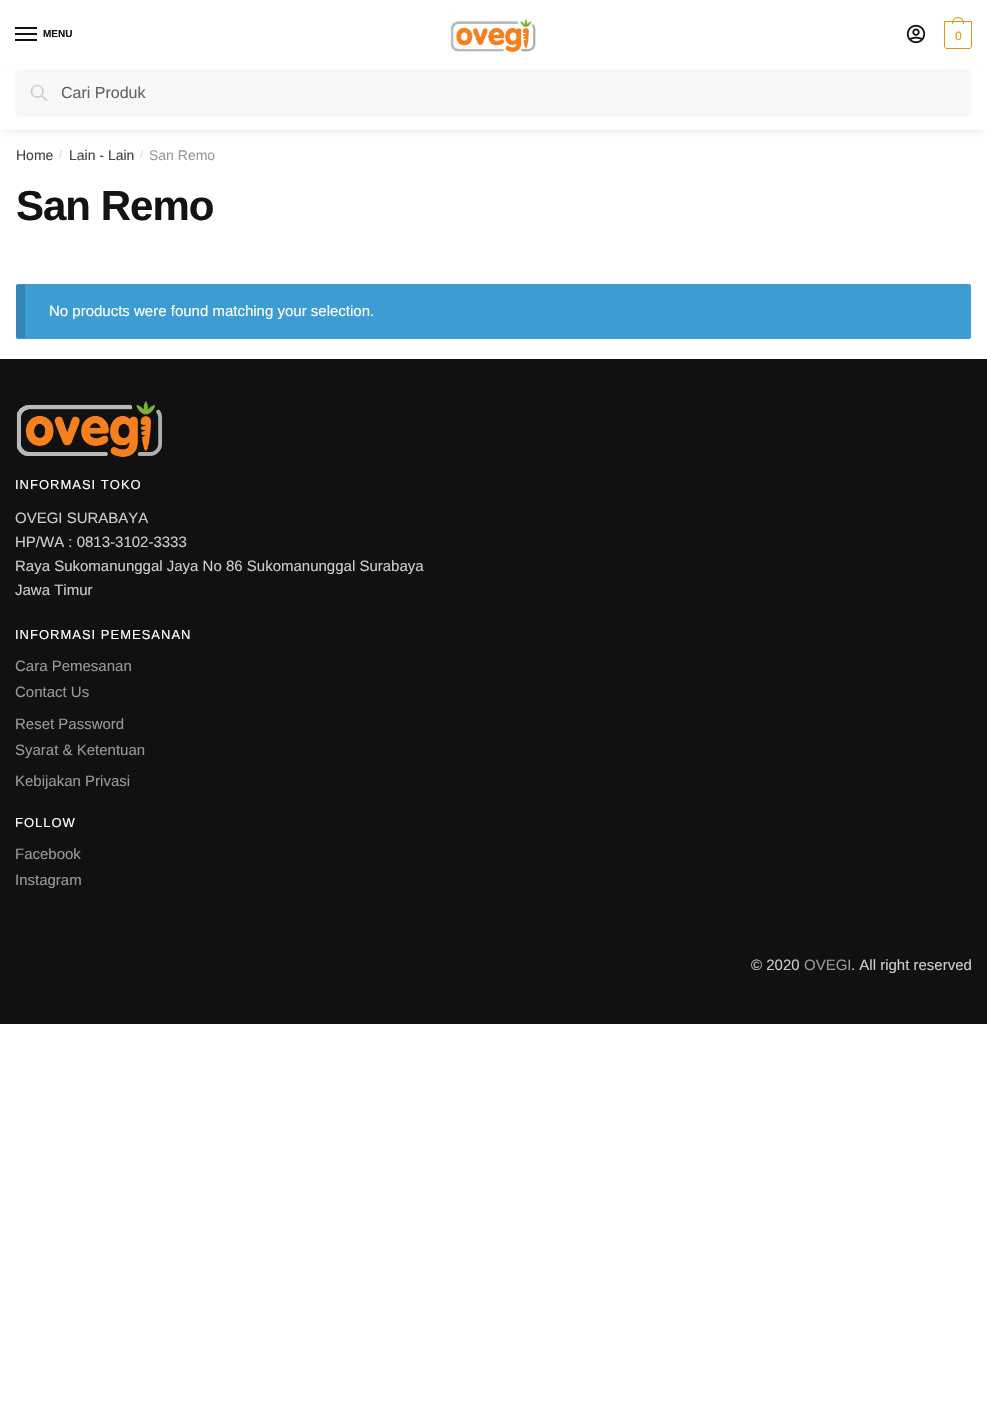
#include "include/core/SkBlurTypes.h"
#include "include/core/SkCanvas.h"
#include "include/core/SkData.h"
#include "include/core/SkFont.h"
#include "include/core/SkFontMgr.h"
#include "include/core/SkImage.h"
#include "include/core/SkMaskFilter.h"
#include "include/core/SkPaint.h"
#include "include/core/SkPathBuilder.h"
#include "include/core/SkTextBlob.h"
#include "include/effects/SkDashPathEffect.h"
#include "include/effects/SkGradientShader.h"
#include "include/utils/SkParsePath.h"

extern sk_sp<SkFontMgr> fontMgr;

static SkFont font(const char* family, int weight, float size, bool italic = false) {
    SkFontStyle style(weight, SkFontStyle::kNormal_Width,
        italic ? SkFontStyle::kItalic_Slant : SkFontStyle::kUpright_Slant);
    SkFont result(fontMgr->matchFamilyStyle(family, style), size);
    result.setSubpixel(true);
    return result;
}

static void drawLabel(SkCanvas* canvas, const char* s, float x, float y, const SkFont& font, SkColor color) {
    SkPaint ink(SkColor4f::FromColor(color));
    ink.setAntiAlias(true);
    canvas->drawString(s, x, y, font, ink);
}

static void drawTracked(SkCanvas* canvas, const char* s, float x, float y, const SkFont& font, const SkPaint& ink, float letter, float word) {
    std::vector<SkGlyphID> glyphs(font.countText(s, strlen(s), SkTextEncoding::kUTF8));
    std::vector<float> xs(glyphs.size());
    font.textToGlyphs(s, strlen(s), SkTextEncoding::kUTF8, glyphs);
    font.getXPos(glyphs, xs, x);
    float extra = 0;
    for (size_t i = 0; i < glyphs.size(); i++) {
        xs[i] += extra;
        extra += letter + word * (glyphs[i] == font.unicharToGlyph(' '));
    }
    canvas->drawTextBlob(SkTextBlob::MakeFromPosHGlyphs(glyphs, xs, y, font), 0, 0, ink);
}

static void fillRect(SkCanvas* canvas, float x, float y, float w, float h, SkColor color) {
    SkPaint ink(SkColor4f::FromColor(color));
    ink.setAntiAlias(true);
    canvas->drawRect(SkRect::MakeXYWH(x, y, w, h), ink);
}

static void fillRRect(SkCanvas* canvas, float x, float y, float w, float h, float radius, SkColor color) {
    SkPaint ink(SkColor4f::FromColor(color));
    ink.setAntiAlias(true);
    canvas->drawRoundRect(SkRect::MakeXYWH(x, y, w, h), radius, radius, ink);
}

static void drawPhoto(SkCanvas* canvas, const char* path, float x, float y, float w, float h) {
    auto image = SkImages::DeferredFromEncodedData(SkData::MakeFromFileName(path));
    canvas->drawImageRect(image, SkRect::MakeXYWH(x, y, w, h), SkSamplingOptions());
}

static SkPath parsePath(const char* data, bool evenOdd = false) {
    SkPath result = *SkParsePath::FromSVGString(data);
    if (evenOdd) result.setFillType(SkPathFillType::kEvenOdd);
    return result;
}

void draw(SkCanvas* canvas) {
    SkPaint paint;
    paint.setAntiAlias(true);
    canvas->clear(0xFFFFFFFF);
    fillRect(canvas, 15, 27, 22, 2, 0xFF111111);
    fillRect(canvas, 15, 33, 22, 2, 0xFF111111);
    SkFont font1 = font("Liberation Sans", 700, 10);
    drawLabel(canvas, "MENU", 43, 37, font1, 0xFF131315);
    fillRect(canvas, 15, 39, 22, 2, 0xFF111111);
    drawPhoto(canvas, "assets/img1.png", 450, 19, 86, 33);
    drawPhoto(canvas, "assets/img2.png", 906, 24, 20, 20);
    paint.setStroke(true);
    paint.setStrokeWidth(1);
    paint.setColor(0xFFDC9814);
    canvas->drawPath(parsePath("M944.5 21.5H971.5V46C971.5 47.5 970.5 48.5 969 48.5H947C945.5 48.5 944.5 47.5 944.5 46Z"), paint);
    paint.setStroke(false);
    canvas->drawPath(parsePath("M958 17C962 17 964 20.5 964 24H952C952 20.5 954 17 958 17ZM958 18C961.5 18 963 21 963 24H953C953 21 954.5 18 958 18Z", true), paint);
    SkFont font2 = font("Liberation Sans", 400, 12);
    drawTracked(canvas, "0", 955, 40, font2, paint, -1, 0);
    paint.setColor(0x2E000000);
    paint.setMaskFilter(SkMaskFilter::MakeBlur(kNormal_SkBlurStyle, 5));
    canvas->drawRect(SkRect::MakeXYWH(5, 78, 977, 50), paint);
    paint.setMaskFilter(nullptr);
    fillRect(canvas, 0, 70, 987, 60, 0xFFFFFFFF);
    paint.setColor(0x0D000000);
    paint.setMaskFilter(SkMaskFilter::MakeBlur(kNormal_SkBlurStyle, 1));
    canvas->drawRoundRect(SkRect::MakeXYWH(16, 71, 955, 45), 4, 4, paint);
    paint.setMaskFilter(nullptr);
    fillRRect(canvas, 16, 70, 955, 45, 4, 0xFFF8F8F8);
    paint.setStroke(true);
    paint.setStrokeWidth(1.7f);
    paint.setStrokeCap(SkPaint::kRound_Cap);
    paint.setStrokeJoin(SkPaint::kRound_Join);
    paint.setColor(0xFFCCCCCC);
    canvas->drawPath(parsePath("M46.5 100.5L41.5 95.5M43 91.5C43 99 31.5 99 31.5 91.5C31.5 83.5 43 83.5 43 91.5Z"), paint);
    SkFont font3 = font("Liberation Sans", 400, 16);
    drawLabel(canvas, "Cari Produk", 61, 98, font3, 0xFF616161);
    SkFont font4 = font("Liberation Sans", 400, 14);
    drawLabel(canvas, "Home", 16, 160, font4, 0xFF444444);
    SkFont font5 = font("Liberation Sans", 400, 11);
    drawLabel(canvas, "/", 59, 158, font5, 0xFFD6D6D6);
    drawLabel(canvas, "Lain - Lain", 69, 160, font4, 0xFF444444);
    drawLabel(canvas, "/", 140, 158, font5, 0xFFD6D6D6);
    drawLabel(canvas, "San Remo", 149, 160, font4, 0xFF999999);
    SkFont font6 = font("Liberation Sans", 700, 42);
    paint.setStroke(false);
    paint.setColor(0xFF131315);
    drawTracked(canvas, "San Remo", 16, 220, font6, paint, -1, 0);
    fillRRect(canvas, 16, 284, 955, 55, 2, 0xFF3D9CD2);
    fillRect(canvas, 16, 285, 9, 53, 0x26000000);
    SkFont font7 = font("Liberation Sans", 400, 15);
    drawLabel(canvas, "No products were found matching your selection.", 49, 316, font7, 0xFFFFFFFF);
    fillRect(canvas, 0, 359, 987, 665, 0xFF111111);
    drawPhoto(canvas, "assets/img3.png", 16, 401, 146, 56);
    SkFont font8 = font("Liberation Sans", 400, 13);
    paint.setColor(0xFFFFFFFF);
    drawTracked(canvas, "INFORMASI TOKO", 15, 489, font8, paint, 1, 0);
    drawLabel(canvas, "OVEGI SURABAYA", 15, 523, font7, 0xFFCCCCCC);
    drawLabel(canvas, "HP/WA : 0813-3102-3333", 15, 547, font7, 0xFFCCCCCC);
    drawLabel(canvas, "Raya Sukomanunggal Jaya No 86 Sukomanunggal Surabaya", 15, 571, font7, 0xFFCCCCCC);
    drawLabel(canvas, "Jawa Timur", 15, 595, font7, 0xFFCCCCCC);
    drawTracked(canvas, "INFORMASI PEMESANAN", 15, 639, font8, paint, 1, 0);
    drawLabel(canvas, "Cara Pemesanan", 15, 671, font7, 0xFF999999);
    drawLabel(canvas, "Contact Us", 15, 697, font7, 0xFF999999);
    drawLabel(canvas, "Reset Password", 15, 729, font7, 0xFF999999);
    drawLabel(canvas, "Syarat & Ketentuan", 15, 755, font7, 0xFF999999);
    drawLabel(canvas, "Kebijakan Privasi", 15, 786, font7, 0xFF999999);
    drawTracked(canvas, "FOLLOW", 15, 827, font8, paint, 1, 0);
    drawLabel(canvas, "Facebook", 15, 859, font7, 0xFF999999);
    drawLabel(canvas, "Instagram", 15, 885, font7, 0xFF999999);
    drawLabel(canvas, "© 2020", 751, 970, font7, 0xFFCCCCCC);
    drawLabel(canvas, "OVEGI", 804, 970, font7, 0xFF999999);
    drawLabel(canvas, ". All right reserved", 851, 970, font7, 0xFFCCCCCC);
}
